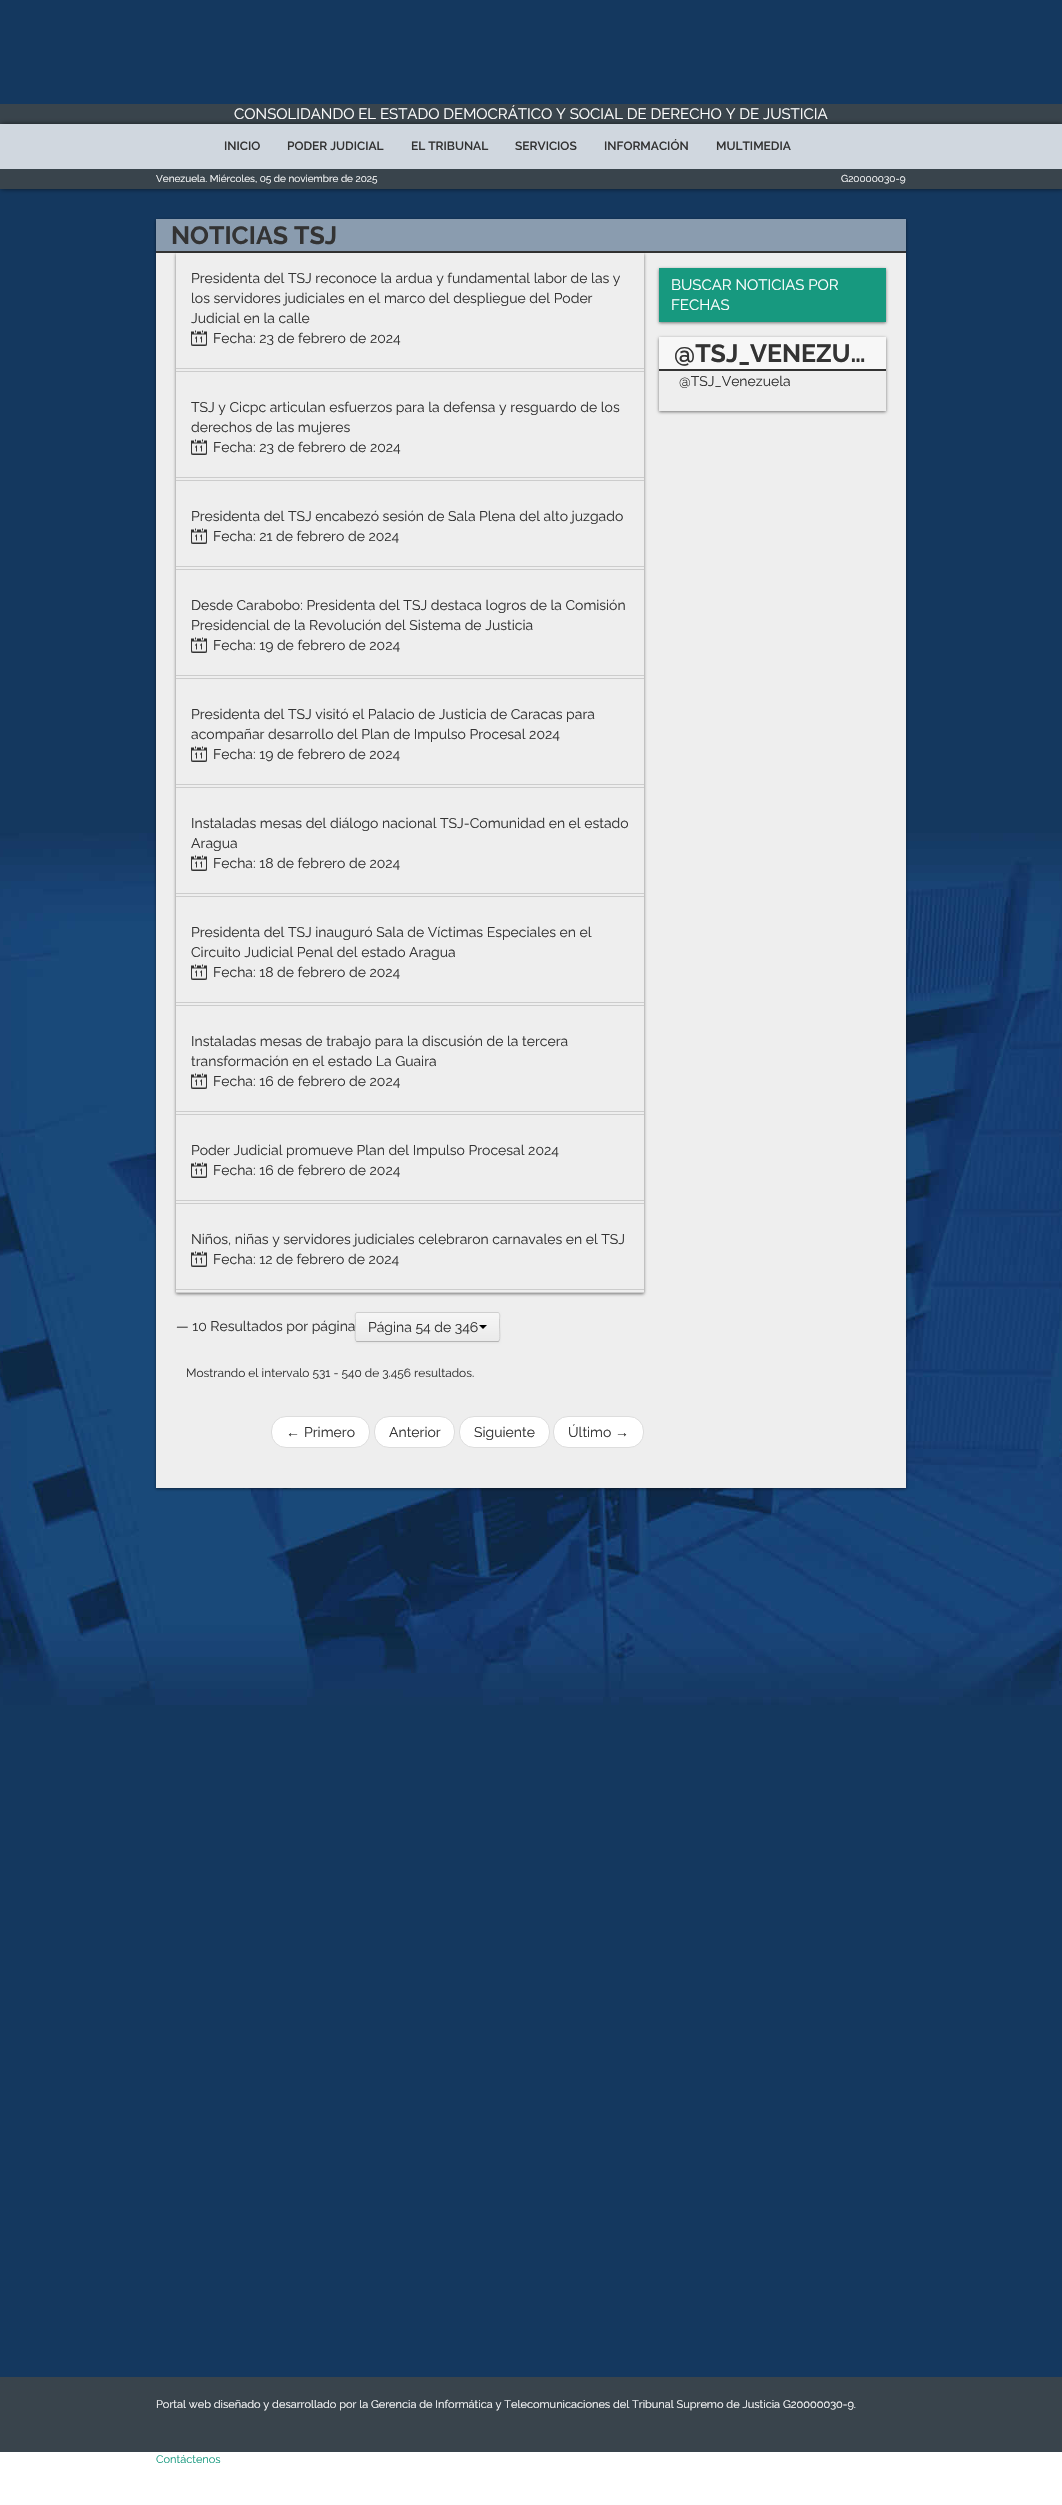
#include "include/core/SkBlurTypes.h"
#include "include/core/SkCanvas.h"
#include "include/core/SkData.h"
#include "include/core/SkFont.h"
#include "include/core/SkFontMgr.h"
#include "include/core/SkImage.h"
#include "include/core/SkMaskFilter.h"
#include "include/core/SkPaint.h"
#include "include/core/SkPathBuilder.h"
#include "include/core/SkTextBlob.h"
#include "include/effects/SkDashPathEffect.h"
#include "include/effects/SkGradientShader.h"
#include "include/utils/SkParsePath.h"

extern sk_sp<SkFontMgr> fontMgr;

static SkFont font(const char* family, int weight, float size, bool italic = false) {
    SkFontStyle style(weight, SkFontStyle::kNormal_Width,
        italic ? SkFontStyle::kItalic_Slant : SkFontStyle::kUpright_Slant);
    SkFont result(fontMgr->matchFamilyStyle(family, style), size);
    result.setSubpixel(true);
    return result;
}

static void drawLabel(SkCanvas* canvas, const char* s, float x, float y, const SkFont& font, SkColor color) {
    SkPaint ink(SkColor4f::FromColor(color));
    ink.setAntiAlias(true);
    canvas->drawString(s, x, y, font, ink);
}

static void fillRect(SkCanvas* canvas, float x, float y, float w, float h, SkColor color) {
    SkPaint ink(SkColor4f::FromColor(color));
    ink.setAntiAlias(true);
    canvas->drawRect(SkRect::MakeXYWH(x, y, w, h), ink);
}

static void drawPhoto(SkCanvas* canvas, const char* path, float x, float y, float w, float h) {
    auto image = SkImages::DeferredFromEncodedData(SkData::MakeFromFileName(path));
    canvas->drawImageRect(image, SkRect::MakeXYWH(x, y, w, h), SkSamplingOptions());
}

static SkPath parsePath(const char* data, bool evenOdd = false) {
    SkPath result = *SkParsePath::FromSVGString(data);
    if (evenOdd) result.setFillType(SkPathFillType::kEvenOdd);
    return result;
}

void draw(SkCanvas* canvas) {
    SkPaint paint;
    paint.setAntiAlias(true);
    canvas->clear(0xFFFFFFFF);
    fillRect(canvas, 0, 0, 1062, 2377, 0xFF14385F);
    drawPhoto(canvas, "assets/img1.png", 0, 833, 1062, 872);
    fillRect(canvas, 0, 104, 1062, 20, 0xFF39444C);
    paint.setColor(0x99000000);
    paint.setMaskFilter(SkMaskFilter::MakeBlur(kNormal_SkBlurStyle, 2.5f));
    canvas->drawRect(SkRect::MakeXYWH(1, 124, 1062, 65), paint);
    paint.setMaskFilter(nullptr);
    SkFont font1 = font("Raleway", 400, 15);
    drawLabel(canvas, "CONSOLIDANDO EL ESTADO DEMOCRÁTICO Y SOCIAL DE DERECHO Y DE JUSTICIA", 234, 119, font1, 0xFFFFFFFF);
    fillRect(canvas, 0, 124, 1062, 45, 0xFFD0D7DF);
    SkFont font2 = font("Raleway", 600, 12);
    drawLabel(canvas, "INICIO", 224, 150, font2, 0xFF333333);
    drawLabel(canvas, "PODER JUDICIAL", 287, 150, font2, 0xFF333333);
    drawLabel(canvas, "EL TRIBUNAL", 411, 150, font2, 0xFF333333);
    drawLabel(canvas, "SERVICIOS", 515, 150, font2, 0xFF333333);
    drawLabel(canvas, "INFORMACIÓN", 604, 150, font2, 0xFF333333);
    drawLabel(canvas, "MULTIMEDIA", 716, 150, font2, 0xFF333333);
    fillRect(canvas, 0, 169, 1062, 20, 0xFF39444C);
    SkFont font3 = font("Raleway", 400, 10);
    drawLabel(canvas, "Venezuela. Miércoles, 05 de noviembre de 2025", 156, 182, font3, 0xFFFFFFFF);
    drawLabel(canvas, "G20000030-9", 841, 182, font3, 0xFFFFFFFF);
    paint.setColor(0x80000000);
    paint.setMaskFilter(SkMaskFilter::MakeBlur(kNormal_SkBlurStyle, 1.5f));
    canvas->drawRect(SkRect::MakeXYWH(156, 220, 750, 1269), paint);
    paint.setMaskFilter(nullptr);
    fillRect(canvas, 156, 219, 750, 32, 0xFF8A9CAF);
    fillRect(canvas, 156, 251, 750, 2, 0xFF333333);
    SkFont font4 = font("Raleway", 700, 25);
    drawLabel(canvas, "NOTICIAS TSJ", 171, 244, font4, 0xFF333333);
    fillRect(canvas, 156, 253, 750, 1235, 0xFFEEEEEE);
    canvas->save();
    canvas->clipPath(parsePath("M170 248H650V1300H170ZM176 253H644V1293H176Z", true), true);
    paint.setMaskFilter(SkMaskFilter::MakeBlur(kNormal_SkBlurStyle, 1.5f));
    canvas->drawRect(SkRect::MakeXYWH(176, 254, 468, 1040), paint);
    paint.setMaskFilter(nullptr);
    canvas->restore();
    SkFont font5 = font("Raleway", 400, 14);
    drawLabel(canvas, "Presidenta del TSJ reconoce la ardua y fundamental labor de las y", 191, 283, font5, 0xFF333333);
    drawLabel(canvas, "los servidores judiciales en el marco del despliegue del Poder", 191, 303, font5, 0xFF333333);
    drawLabel(canvas, "Judicial en la calle", 191, 323, font5, 0xFF333333);
    drawPhoto(canvas, "assets/img2.png", 191, 330, 16, 16);
    drawLabel(canvas, "Fecha: 23 de febrero de 2024", 213, 343, font5, 0xFF333333);
    fillRect(canvas, 176, 368, 468, 1, 0xFFCCCCCC);
    fillRect(canvas, 176, 371, 468, 1, 0xFFCCCCCC);
    drawLabel(canvas, "TSJ y Cicpc articulan esfuerzos para la defensa y resguardo de los", 191, 412, font5, 0xFF333333);
    drawLabel(canvas, "derechos de las mujeres", 191, 432, font5, 0xFF333333);
    drawPhoto(canvas, "assets/img2.png", 191, 439, 16, 16);
    drawLabel(canvas, "Fecha: 23 de febrero de 2024", 213, 452, font5, 0xFF333333);
    fillRect(canvas, 176, 477, 468, 1, 0xFFCCCCCC);
    fillRect(canvas, 176, 480, 468, 1, 0xFFCCCCCC);
    drawLabel(canvas, "Presidenta del TSJ encabezó sesión de Sala Plena del alto juzgado", 191, 521, font5, 0xFF333333);
    drawPhoto(canvas, "assets/img2.png", 191, 528, 16, 16);
    drawLabel(canvas, "Fecha: 21 de febrero de 2024", 213, 541, font5, 0xFF333333);
    fillRect(canvas, 176, 566, 468, 1, 0xFFCCCCCC);
    fillRect(canvas, 176, 569, 468, 1, 0xFFCCCCCC);
    drawLabel(canvas, "Desde Carabobo: Presidenta del TSJ destaca logros de la Comisión", 191, 610, font5, 0xFF333333);
    drawLabel(canvas, "Presidencial de la Revolución del Sistema de Justicia", 191, 630, font5, 0xFF333333);
    drawPhoto(canvas, "assets/img2.png", 191, 637, 16, 16);
    drawLabel(canvas, "Fecha: 19 de febrero de 2024", 213, 650, font5, 0xFF333333);
    fillRect(canvas, 176, 675, 468, 1, 0xFFCCCCCC);
    fillRect(canvas, 176, 678, 468, 1, 0xFFCCCCCC);
    drawLabel(canvas, "Presidenta del TSJ visitó el Palacio de Justicia de Caracas para", 191, 719, font5, 0xFF333333);
    drawLabel(canvas, "acompañar desarrollo del Plan de Impulso Procesal 2024", 191, 739, font5, 0xFF333333);
    drawPhoto(canvas, "assets/img2.png", 191, 746, 16, 16);
    drawLabel(canvas, "Fecha: 19 de febrero de 2024", 213, 759, font5, 0xFF333333);
    fillRect(canvas, 176, 784, 468, 1, 0xFFCCCCCC);
    fillRect(canvas, 176, 787, 468, 1, 0xFFCCCCCC);
    drawLabel(canvas, "Instaladas mesas del diálogo nacional TSJ-Comunidad en el estado", 191, 828, font5, 0xFF333333);
    drawLabel(canvas, "Aragua", 191, 848, font5, 0xFF333333);
    drawPhoto(canvas, "assets/img2.png", 191, 855, 16, 16);
    drawLabel(canvas, "Fecha: 18 de febrero de 2024", 213, 868, font5, 0xFF333333);
    fillRect(canvas, 176, 893, 468, 1, 0xFFCCCCCC);
    fillRect(canvas, 176, 896, 468, 1, 0xFFCCCCCC);
    drawLabel(canvas, "Presidenta del TSJ inauguró Sala de Víctimas Especiales en el", 191, 937, font5, 0xFF333333);
    drawLabel(canvas, "Circuito Judicial Penal del estado Aragua", 191, 957, font5, 0xFF333333);
    drawPhoto(canvas, "assets/img2.png", 191, 964, 16, 16);
    drawLabel(canvas, "Fecha: 18 de febrero de 2024", 213, 977, font5, 0xFF333333);
    fillRect(canvas, 176, 1002, 468, 1, 0xFFCCCCCC);
    fillRect(canvas, 176, 1005, 468, 1, 0xFFCCCCCC);
    drawLabel(canvas, "Instaladas mesas de trabajo para la discusión de la tercera", 191, 1046, font5, 0xFF333333);
    drawLabel(canvas, "transformación en el estado La Guaira", 191, 1066, font5, 0xFF333333);
    drawPhoto(canvas, "assets/img2.png", 191, 1073, 16, 16);
    drawLabel(canvas, "Fecha: 16 de febrero de 2024", 213, 1086, font5, 0xFF333333);
    fillRect(canvas, 176, 1111, 468, 1, 0xFFCCCCCC);
    fillRect(canvas, 176, 1114, 468, 1, 0xFFCCCCCC);
    drawLabel(canvas, "Poder Judicial promueve Plan del Impulso Procesal 2024", 191, 1155, font5, 0xFF333333);
    drawPhoto(canvas, "assets/img2.png", 191, 1162, 16, 16);
    drawLabel(canvas, "Fecha: 16 de febrero de 2024", 213, 1175, font5, 0xFF333333);
    fillRect(canvas, 176, 1200, 468, 1, 0xFFCCCCCC);
    fillRect(canvas, 176, 1203, 468, 1, 0xFFCCCCCC);
    drawLabel(canvas, "Niños, niñas y servidores judiciales celebraron carnavales en el TSJ", 191, 1244, font5, 0xFF333333);
    drawPhoto(canvas, "assets/img2.png", 191, 1251, 16, 16);
    drawLabel(canvas, "Fecha: 12 de febrero de 2024", 213, 1264, font5, 0xFF333333);
    fillRect(canvas, 176, 1289, 468, 1, 0xFFCCCCCC);
    fillRect(canvas, 176, 1292, 468, 1, 0xFFCCCCCC);
    drawLabel(canvas, "— 10 Resultados por página", 176, 1331, font5, 0xFF333333);
    paint.setColor(0x0D000000);
    paint.setMaskFilter(SkMaskFilter::MakeBlur(kNormal_SkBlurStyle, 1));
    canvas->drawRoundRect(SkRect::MakeXYWH(355, 1313, 145, 30), 2, 2, paint);
    paint.setMaskFilter(nullptr);
    canvas->save();
    canvas->clipPath(parsePath("M357 1312H498C499 1312 500 1313 500 1314V1340C500 1341 499 1342 498 1342H357C356 1342 355 1341 355 1340V1314C355 1313 356 1312 357 1312Z"), true);
    {
        const SkColor colors[] = {0xFFF6F6F6, 0xFFEAEAEA};
        const float stops[] = {0, 1};
        const SkPoint ends[] = {{428, 1313}, {428, 1341}};
        paint.setShader(SkGradientShader::MakeLinear(ends, colors, stops, 2, SkTileMode::kClamp));
        paint.setAlpha(255);
    }
    canvas->drawRect(SkRect::MakeXYWH(355, 1313, 145, 28), paint);
    canvas->restore();
    paint.setStroke(true);
    paint.setStrokeWidth(1);
    paint.setShader(nullptr);
    paint.setColor(0xFFB5B5B5);
    canvas->drawPath(parsePath("M499 1341L498 1341.5H356.5L356 1341"), paint);
    paint.setColor(0xFFCFCFCF);
    canvas->drawPath(parsePath("M356 1341C354.5 1339.5 355.5 1329 355.5 1327V1318.5C355.5 1318 354.5 1312.5 357 1312.5H498C500.5 1312.5 499.5 1318 499.5 1318.5V1327C499.5 1329 500.5 1339.5 499 1341"), paint);
    drawLabel(canvas, "Página 54 de 346", 368, 1332, font5, 0xFF333333);
    paint.setStroke(false);
    paint.setColor(0xFF000000);
    canvas->drawPath(parsePath("M479 1325H487L483 1329Z"), paint);
    SkFont font6 = font("Raleway", 400, 11.9f);
    drawLabel(canvas, "Mostrando el intervalo 531 - 540 de 3.456 resultados.", 186, 1377, font6, 0xFF333333);
    paint.setColor(0xFFFFFFFF);
    canvas->drawRoundRect(SkRect::MakeXYWH(271.5f, 1416.5f, 98, 31), 14.5f, 14.5f, paint);
    paint.setStroke(true);
    paint.setColor(0xFFDDDDDD);
    canvas->drawRoundRect(SkRect::MakeXYWH(271.5f, 1416.5f, 98, 31), 14.5f, 14.5f, paint);
    SkFont font7 = font("Liberation Sans", 400, 14);
    drawLabel(canvas, "←", 286, 1437, font7, 0xFF333333);
    drawLabel(canvas, "Primero", 304, 1437, font5, 0xFF333333);
    paint.setStroke(false);
    paint.setColor(0xFFFFFFFF);
    canvas->drawRoundRect(SkRect::MakeXYWH(374.5f, 1416.5f, 80, 31), 14.5f, 14.5f, paint);
    paint.setStroke(true);
    paint.setColor(0xFFDDDDDD);
    canvas->drawRoundRect(SkRect::MakeXYWH(374.5f, 1416.5f, 80, 31), 14.5f, 14.5f, paint);
    drawLabel(canvas, "Anterior", 389, 1437, font5, 0xFF333333);
    paint.setStroke(false);
    paint.setColor(0xFFFFFFFF);
    canvas->drawRoundRect(SkRect::MakeXYWH(459.5f, 1416.5f, 90, 31), 14.5f, 14.5f, paint);
    paint.setStroke(true);
    paint.setColor(0xFFDDDDDD);
    canvas->drawRoundRect(SkRect::MakeXYWH(459.5f, 1416.5f, 90, 31), 14.5f, 14.5f, paint);
    drawLabel(canvas, "Siguiente", 474, 1437, font5, 0xFF333333);
    paint.setStroke(false);
    paint.setColor(0xFFFFFFFF);
    canvas->drawRoundRect(SkRect::MakeXYWH(553.5f, 1416.5f, 90, 31), 14.5f, 14.5f, paint);
    paint.setStroke(true);
    paint.setColor(0xFFDDDDDD);
    canvas->drawRoundRect(SkRect::MakeXYWH(553.5f, 1416.5f, 90, 31), 14.5f, 14.5f, paint);
    drawLabel(canvas, "Último", 568, 1437, font5, 0xFF333333);
    drawLabel(canvas, "→", 615, 1437, font7, 0xFF333333);
    paint.setStroke(false);
    paint.setColor(0x80000000);
    paint.setMaskFilter(SkMaskFilter::MakeBlur(kNormal_SkBlurStyle, 1.5f));
    canvas->drawRect(SkRect::MakeXYWH(659, 269, 227, 54), paint);
    paint.setMaskFilter(nullptr);
    fillRect(canvas, 659, 268, 227, 54, 0xFF17997F);
    drawLabel(canvas, "BUSCAR NOTICIAS POR", 671, 290, font1, 0xFFFFFFFF);
    drawLabel(canvas, "FECHAS", 671, 310, font1, 0xFFFFFFFF);
    canvas->save();
    canvas->clipPath(parsePath("M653 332H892V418H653ZM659 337H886V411H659Z", true), true);
    paint.setMaskFilter(SkMaskFilter::MakeBlur(kNormal_SkBlurStyle, 1.5f));
    canvas->drawRect(SkRect::MakeXYWH(659, 338, 227, 74), paint);
    paint.setMaskFilter(nullptr);
    canvas->restore();
    fillRect(canvas, 659, 337, 227, 32, 0xFFF7F7F7);
    fillRect(canvas, 659, 369, 227, 2, 0xFF333333);
    drawLabel(canvas, "@TSJ_VENEZU…", 674, 362, font4, 0xFF333333);
    drawLabel(canvas, "@TSJ_Venezuela", 679, 386, font5, 0xFF333333);
    fillRect(canvas, 0, 2377, 1062, 75, 0xFF39444C);
    SkFont font8 = font("Raleway", 400, 11);
    drawLabel(canvas, "Portal web diseñado y desarrollado por la Gerencia de Informática y Telecomunicaciones del Tribunal Supremo de Justicia G20000030-9.", 156, 2408, font8, 0xFFFFFFFF);
    drawLabel(canvas, "Contáctenos", 156, 2463, font8, 0xFF17997F);
}
